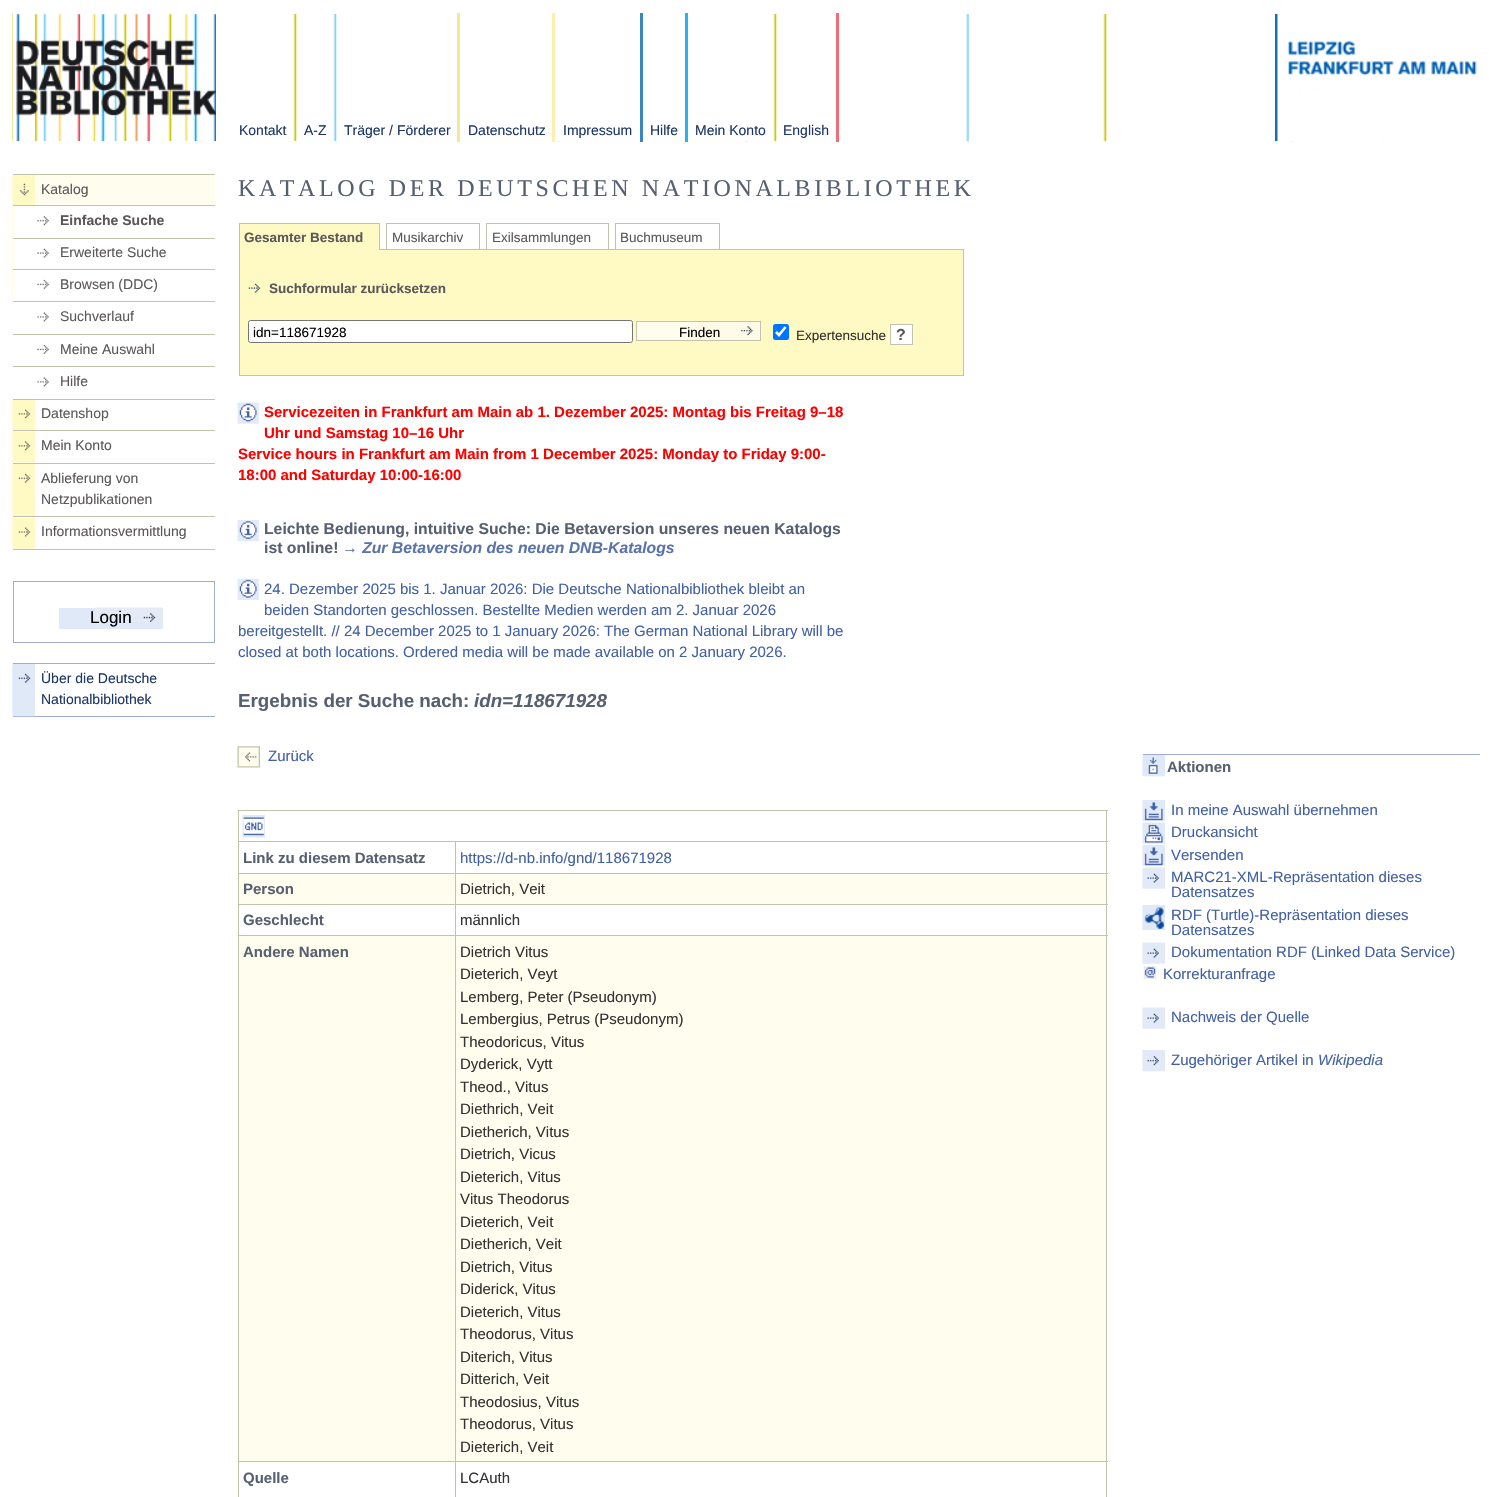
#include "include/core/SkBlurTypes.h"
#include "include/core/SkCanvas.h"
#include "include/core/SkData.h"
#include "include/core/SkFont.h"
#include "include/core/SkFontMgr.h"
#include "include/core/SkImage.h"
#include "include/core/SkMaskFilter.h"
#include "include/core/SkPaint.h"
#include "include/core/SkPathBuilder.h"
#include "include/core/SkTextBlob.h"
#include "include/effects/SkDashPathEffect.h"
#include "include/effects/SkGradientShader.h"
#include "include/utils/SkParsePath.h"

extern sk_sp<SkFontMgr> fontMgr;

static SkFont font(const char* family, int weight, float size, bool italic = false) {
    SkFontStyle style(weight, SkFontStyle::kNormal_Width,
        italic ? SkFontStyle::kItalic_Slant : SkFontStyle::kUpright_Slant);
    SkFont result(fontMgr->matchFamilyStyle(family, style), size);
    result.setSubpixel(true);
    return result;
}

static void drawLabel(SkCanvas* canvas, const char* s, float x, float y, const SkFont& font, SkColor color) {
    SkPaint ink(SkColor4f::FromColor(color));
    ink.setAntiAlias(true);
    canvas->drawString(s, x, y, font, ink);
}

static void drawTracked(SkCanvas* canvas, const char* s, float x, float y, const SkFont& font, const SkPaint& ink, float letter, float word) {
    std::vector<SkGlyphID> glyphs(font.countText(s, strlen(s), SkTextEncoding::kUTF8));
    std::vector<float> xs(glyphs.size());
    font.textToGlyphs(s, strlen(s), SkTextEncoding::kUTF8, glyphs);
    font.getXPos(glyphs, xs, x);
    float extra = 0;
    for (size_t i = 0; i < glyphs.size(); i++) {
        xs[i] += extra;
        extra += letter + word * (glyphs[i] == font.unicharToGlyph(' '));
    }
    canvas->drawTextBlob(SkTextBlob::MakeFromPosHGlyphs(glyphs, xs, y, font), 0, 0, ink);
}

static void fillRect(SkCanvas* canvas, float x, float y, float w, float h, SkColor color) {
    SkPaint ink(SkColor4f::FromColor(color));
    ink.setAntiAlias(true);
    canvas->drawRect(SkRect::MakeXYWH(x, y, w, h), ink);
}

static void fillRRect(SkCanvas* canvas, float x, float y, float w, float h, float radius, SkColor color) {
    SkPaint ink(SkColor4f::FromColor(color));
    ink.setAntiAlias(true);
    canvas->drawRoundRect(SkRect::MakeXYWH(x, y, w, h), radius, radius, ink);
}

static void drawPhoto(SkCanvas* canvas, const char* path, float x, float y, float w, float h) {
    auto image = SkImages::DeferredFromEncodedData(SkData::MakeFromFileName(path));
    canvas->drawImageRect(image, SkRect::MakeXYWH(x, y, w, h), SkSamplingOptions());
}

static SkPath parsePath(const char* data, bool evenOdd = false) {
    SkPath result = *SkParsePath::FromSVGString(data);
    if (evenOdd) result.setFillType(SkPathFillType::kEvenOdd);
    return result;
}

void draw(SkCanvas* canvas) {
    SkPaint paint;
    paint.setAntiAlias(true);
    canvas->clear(0xFFFFFFFF);
    drawPhoto(canvas, "assets/img1.png", 12, 13, 1372, 129);
    paint.setStroke(true);
    paint.setStrokeWidth(1);
    paint.setColor(0xFFFFFFFF);
    canvas->drawRect(SkRect::MakeXYWH(13.5f, 13.5f, 1469, 129), paint);
    drawPhoto(canvas, "assets/img2.png", 16, 13, 200, 129);
    fillRect(canvas, 288, 14, 548, 127, 0xFFFFFFFF);
    drawPhoto(canvas, "assets/img3.png", 293, 13, 4, 129);
    SkFont font1 = font("Liberation Sans", 400, 14);
    drawLabel(canvas, "Kontakt", 239, 135, font1, 0xFF1C3667);
    drawPhoto(canvas, "assets/img4.png", 333, 13, 4, 129);
    drawLabel(canvas, "A-Z", 304, 135, font1, 0xFF1C3667);
    fillRect(canvas, 457, 13, 3, 129, 0xFFF2E895);
    drawLabel(canvas, "Träger / Förderer", 344, 135, font1, 0xFF1C3667);
    fillRect(canvas, 552, 13, 3, 129, 0xFFFFEEAC);
    drawLabel(canvas, "Datenschutz", 468, 135, font1, 0xFF1C3667);
    fillRect(canvas, 640, 13, 3, 129, 0xFF3A85C2);
    drawLabel(canvas, "Impressum", 563, 135, font1, 0xFF1C3667);
    fillRect(canvas, 685, 13, 3, 129, 0xFF26B3EE);
    drawLabel(canvas, "Hilfe", 650, 135, font1, 0xFF1C3667);
    drawPhoto(canvas, "assets/img3.png", 773, 13, 4, 129);
    drawLabel(canvas, "Mein Konto", 695, 135, font1, 0xFF1C3667);
    fillRect(canvas, 836, 13, 3, 129, 0xFFEE6D77);
    drawLabel(canvas, "English", 783, 135, font1, 0xFF1C3667);
    drawPhoto(canvas, "assets/img5.png", 1275, 13, 202, 129);
    fillRect(canvas, 13, 549, 202, 1, 0xFFC1C3AE);
    fillRect(canvas, 35, 175, 180, 30, 0xFFFFFDED);
    drawPhoto(canvas, "assets/img6.png", 12, 175, 23, 125);
    fillRect(canvas, 13, 174, 202, 1, 0xFFC1C3AE);
    drawPhoto(canvas, "assets/img7.png", 12, 179, 17, 21);
    drawLabel(canvas, "Katalog", 41, 194, font1, 0xFF5C575B);
    fillRect(canvas, 13, 206, 22, 94, 0xFFFFFFFF);
    fillRect(canvas, 13, 205, 202, 1, 0xFFC1C3AE);
    drawPhoto(canvas, "assets/img8.png", 37, 216, 12, 10);
    SkFont font2 = font("Liberation Sans", 700, 14);
    drawLabel(canvas, "Einfache Suche", 60, 225, font2, 0xFF5C575B);
    fillRect(canvas, 13, 238, 202, 1, 0xFFC1C3AE);
    drawPhoto(canvas, "assets/img9.png", 37, 248, 12, 10);
    drawLabel(canvas, "Erweiterte Suche", 60, 257, font1, 0xFF5C575B);
    fillRect(canvas, 13, 269, 202, 1, 0xFFC1C3AE);
    drawPhoto(canvas, "assets/img10.png", 37, 279, 12, 10);
    drawLabel(canvas, "Browsen (DDC)", 60, 289, font1, 0xFF5C575B);
    fillRect(canvas, 13, 301, 202, 1, 0xFFC1C3AE);
    drawPhoto(canvas, "assets/img11.png", 37, 312, 12, 10);
    drawLabel(canvas, "Suchverlauf", 60, 321, font1, 0xFF5C575B);
    fillRect(canvas, 13, 334, 202, 1, 0xFFC1C3AE);
    drawPhoto(canvas, "assets/img10.png", 37, 344, 12, 10);
    drawLabel(canvas, "Meine Auswahl", 60, 354, font1, 0xFF5C575B);
    fillRect(canvas, 13, 366, 202, 1, 0xFFC1C3AE);
    drawPhoto(canvas, "assets/img11.png", 37, 377, 12, 10);
    drawLabel(canvas, "Hilfe", 60, 386, font1, 0xFF5C575B);
    drawPhoto(canvas, "assets/img12.png", 12, 400, 23, 30);
    fillRect(canvas, 13, 399, 202, 1, 0xFFC1C3AE);
    drawPhoto(canvas, "assets/img13.png", 12, 404, 19, 20);
    drawLabel(canvas, "Datenshop", 41, 418, font1, 0xFF5C575B);
    drawPhoto(canvas, "assets/img14.png", 12, 431, 23, 32);
    fillRect(canvas, 13, 430, 202, 1, 0xFFC1C3AE);
    drawPhoto(canvas, "assets/img15.png", 12, 435, 19, 21);
    drawLabel(canvas, "Mein Konto", 41, 450, font1, 0xFF5C575B);
    drawPhoto(canvas, "assets/img16.png", 12, 463, 23, 54);
    fillRect(canvas, 13, 463, 202, 1, 0xFFC1C3AE);
    drawPhoto(canvas, "assets/img17.png", 12, 467, 19, 43);
    drawLabel(canvas, "Ablieferung von", 41, 483, font1, 0xFF5C575B);
    drawLabel(canvas, "Netzpublikationen", 41, 504, font1, 0xFF5C575B);
    drawPhoto(canvas, "assets/img18.png", 12, 517, 23, 32);
    fillRect(canvas, 13, 516, 202, 1, 0xFFC1C3AE);
    drawPhoto(canvas, "assets/img19.png", 12, 521, 19, 22);
    drawLabel(canvas, "Informationsvermittlung", 41, 536, font1, 0xFF5C575B);
    paint.setColor(0xFF9EADD6);
    canvas->drawRect(SkRect::MakeXYWH(13.5f, 581.5f, 201, 61), paint);
    fillRect(canvas, 59, 608, 104, 21, 0xFFE0E9F8);
    drawPhoto(canvas, "assets/img20.png", 95, 607, 68, 15);
    SkFont font3 = font("Liberation Sans", 400, 17);
    drawLabel(canvas, "Login", 90, 623, font3, 0xFF000000);
    fillRect(canvas, 13, 716, 202, 1, 0xFF9DAFD5);
    drawPhoto(canvas, "assets/img21.png", 12, 663, 23, 54);
    fillRect(canvas, 13, 663, 202, 1, 0xFF9DAFD5);
    drawPhoto(canvas, "assets/img22.png", 12, 668, 19, 42);
    drawLabel(canvas, "Über die Deutsche", 41, 683, font1, 0xFF1C3667);
    drawLabel(canvas, "Nationalbibliothek", 41, 704, font1, 0xFF1C3667);
    SkFont font4 = font("Liberation Serif", 400, 24);
    paint.setStroke(false);
    paint.setColor(0xFF576072);
    drawTracked(canvas, "KATALOG DER DEUTSCHEN NATIONALBIBLIOTHEK", 238, 196, font4, paint, 3.6f, 0);
    paint.setStroke(true);
    paint.setColor(0xFFC1C3AE);
    canvas->drawRect(SkRect::MakeXYWH(386.5f, 223.5f, 93, 37), paint);
    canvas->drawRect(SkRect::MakeXYWH(486.5f, 223.5f, 122, 37), paint);
    canvas->drawRect(SkRect::MakeXYWH(615.5f, 223.5f, 104, 37), paint);
    paint.setStroke(false);
    paint.setColor(0xFFFFFAC3);
    canvas->drawRect(SkRect::MakeXYWH(239.5f, 249.5f, 724, 126), paint);
    paint.setStroke(true);
    paint.setColor(0xFFC1C3AE);
    canvas->drawRect(SkRect::MakeXYWH(239.5f, 249.5f, 724, 126), paint);
    fillRect(canvas, 240, 224, 139, 26, 0xFFFFFAC3);
    fillRect(canvas, 239, 223, 141, 1, 0xFFC1C3AE);
    fillRect(canvas, 379, 223, 1, 27, 0xFFC1C3AE);
    fillRect(canvas, 239, 223, 1, 27, 0xFFC1C3AE);
    SkFont font5 = font("Liberation Sans", 700, 13.5f);
    drawLabel(canvas, "Gesamter Bestand", 244, 242, font5, 0xFF5C575B);
    SkFont font6 = font("Liberation Sans", 400, 13.5f);
    drawLabel(canvas, "Musikarchiv", 392, 242, font6, 0xFF5C575B);
    drawLabel(canvas, "Exilsammlungen", 492, 242, font6, 0xFF5C575B);
    drawLabel(canvas, "Buchmuseum", 620, 242, font6, 0xFF5C575B);
    drawPhoto(canvas, "assets/img23.png", 248, 283, 13, 10);
    drawLabel(canvas, "Suchformular zurücksetzen", 269, 293, font5, 0xFF5C575B);
    paint.setStroke(false);
    paint.setColor(0xFFFFFFFF);
    canvas->drawRoundRect(SkRect::MakeXYWH(248.5f, 320.5f, 384, 22), 2, 2, paint);
    paint.setStroke(true);
    paint.setColor(0xFF767676);
    canvas->drawRoundRect(SkRect::MakeXYWH(248.5f, 320.5f, 384, 22), 2, 2, paint);
    drawLabel(canvas, "idn=118671928", 253, 337, font6, 0xFF000000);
    fillRect(canvas, 637, 322, 56, 18, 0xFFFFFDED);
    drawPhoto(canvas, "assets/img24.png", 692, 322, 68, 20);
    paint.setColor(0xFFC1C3AE);
    canvas->drawRect(SkRect::MakeXYWH(636.5f, 321.5f, 124, 19), paint);
    drawLabel(canvas, "Finden", 679, 337, font6, 0xFF000000);
    fillRRect(canvas, 773, 324, 16, 16, 2.5f, 0xFF0075FF);
    paint.setStrokeWidth(2.6f);
    paint.setColor(0xFFFFFFFF);
    canvas->drawPath(parsePath("M776 332L779 335L785.5 327"), paint);
    drawLabel(canvas, "Expertensuche", 796, 340, font6, 0xFF333333);
    paint.setStroke(false);
    canvas->drawRect(SkRect::MakeXYWH(890.5f, 324.5f, 22, 20), paint);
    paint.setStroke(true);
    paint.setStrokeWidth(1);
    paint.setColor(0xFFC1C3AE);
    canvas->drawRect(SkRect::MakeXYWH(890.5f, 324.5f, 22, 20), paint);
    SkFont font7 = font("Liberation Sans", 700, 16);
    drawLabel(canvas, "?", 896, 340, font7, 0xFF5C575B);
    drawPhoto(canvas, "assets/img25.png", 237, 402, 22, 22);
    SkFont font8 = font("Liberation Sans", 700, 15);
    drawLabel(canvas, "Servicezeiten in Frankfurt am Main ab 1. Dezember 2025: Montag bis Freitag 9–18", 264, 417, font8, 0xFFFF0000);
    drawLabel(canvas, "Uhr und Samstag 10–16 Uhr", 264, 438, font8, 0xFFFF0000);
    drawLabel(canvas, "Service hours in Frankfurt am Main from 1 December 2025: Monday to Friday 9:00-", 238, 459, font8, 0xFFFF0000);
    drawLabel(canvas, "18:00 and Saturday 10:00-16:00", 238, 480, font8, 0xFFFF0000);
    drawPhoto(canvas, "assets/img26.png", 237, 520, 22, 22);
    SkFont font9 = font("Liberation Sans", 700, 15.75f);
    drawLabel(canvas, "Leichte Bedienung, intuitive Suche: Die Betaversion unseres neuen Katalogs", 264, 534, font9, 0xFF576072);
    drawLabel(canvas, "ist online!", 264, 553, font9, 0xFF576072);
    SkFont font10 = font("Liberation Sans", 700, 15.75f, true);
    drawLabel(canvas, "→ Zur Betaversion des neuen DNB-Katalogs", 342, 553, font10, 0xFF5A74A9);
    drawPhoto(canvas, "assets/img27.png", 237, 578, 22, 22);
    SkFont font11 = font("Liberation Sans", 400, 15);
    drawLabel(canvas, "24. Dezember 2025 bis 1. Januar 2026: Die Deutsche Nationalbibliothek bleibt an", 264, 594, font11, 0xFF4160A5);
    drawLabel(canvas, "beiden Standorten geschlossen. Bestellte Medien werden am 2. Januar 2026", 264, 615, font11, 0xFF4160A5);
    drawLabel(canvas, "bereitgestellt. // 24 December 2025 to 1 January 2026: The German National Library will be", 238, 636, font11, 0xFF4160A5);
    drawLabel(canvas, "closed at both locations. Ordered media will be made available on 2 January 2026.", 238, 657, font11, 0xFF4160A5);
    SkFont font12 = font("Liberation Sans", 700, 18.75f);
    drawLabel(canvas, "Ergebnis der Suche nach:", 238, 707, font12, 0xFF576072);
    SkFont font13 = font("Liberation Sans", 700, 18.75f, true);
    drawLabel(canvas, "idn=118671928", 474, 707, font13, 0xFF576072);
    drawPhoto(canvas, "assets/img28.png", 237, 746, 23, 22);
    drawLabel(canvas, "Zurück", 268, 761, font11, 0xFF4160A5);
    fillRect(canvas, 238, 810, 870, 1, 0xFFC1C3AD);
    fillRect(canvas, 1106, 810, 1, 687, 0xFFC1C3AD);
    fillRect(canvas, 238, 810, 1, 687, 0xFFC1C3AD);
    drawPhoto(canvas, "assets/img29.png", 242, 815, 23, 23);
    fillRect(canvas, 238, 841, 870, 1, 0xFFC1C3AD);
    drawLabel(canvas, "Link zu diesem Datensatz", 243, 863, font8, 0xFF576072);
    drawLabel(canvas, "https://d-nb.info/gnd/118671928", 460, 863, font11, 0xFF4160A5);
    fillRect(canvas, 238, 873, 870, 1, 0xFFC1C3AD);
    fillRect(canvas, 239, 874, 216, 30, 0xFFFFFDED);
    drawLabel(canvas, "Person", 243, 894, font8, 0xFF576072);
    fillRect(canvas, 456, 874, 650, 30, 0xFFFFFDED);
    drawLabel(canvas, "Dietrich, Veit", 460, 894, font11, 0xFF333333);
    fillRect(canvas, 238, 904, 870, 1, 0xFFC1C3AD);
    drawLabel(canvas, "Geschlecht", 243, 925, font8, 0xFF576072);
    drawLabel(canvas, "männlich", 460, 925, font11, 0xFF333333);
    fillRect(canvas, 238, 935, 870, 1, 0xFFC1C3AD);
    fillRect(canvas, 239, 936, 216, 527, 0xFFFFFDED);
    drawLabel(canvas, "Andere Namen", 243, 957, font8, 0xFF576072);
    fillRect(canvas, 456, 936, 650, 527, 0xFFFFFDED);
    drawLabel(canvas, "Dietrich Vitus", 460, 957, font11, 0xFF333333);
    drawLabel(canvas, "Dieterich, Veyt", 460, 979, font11, 0xFF333333);
    drawLabel(canvas, "Lemberg, Peter (Pseudonym)", 460, 1002, font11, 0xFF333333);
    drawLabel(canvas, "Lembergius, Petrus (Pseudonym)", 460, 1024, font11, 0xFF333333);
    drawLabel(canvas, "Theodoricus, Vitus", 460, 1047, font11, 0xFF333333);
    drawLabel(canvas, "Dyderick, Vytt", 460, 1069, font11, 0xFF333333);
    drawLabel(canvas, "Theod., Vitus", 460, 1092, font11, 0xFF333333);
    drawLabel(canvas, "Diethrich, Veit", 460, 1114, font11, 0xFF333333);
    drawLabel(canvas, "Dietherich, Vitus", 460, 1137, font11, 0xFF333333);
    drawLabel(canvas, "Dietrich, Vicus", 460, 1159, font11, 0xFF333333);
    drawLabel(canvas, "Dieterich, Vitus", 460, 1182, font11, 0xFF333333);
    drawLabel(canvas, "Vitus Theodorus", 460, 1204, font11, 0xFF333333);
    drawLabel(canvas, "Dieterich, Veit", 460, 1227, font11, 0xFF333333);
    drawLabel(canvas, "Dietherich, Veit", 460, 1249, font11, 0xFF333333);
    drawLabel(canvas, "Dietrich, Vitus", 460, 1272, font11, 0xFF333333);
    drawLabel(canvas, "Diderick, Vitus", 460, 1294, font11, 0xFF333333);
    drawLabel(canvas, "Dieterich, Vitus", 460, 1317, font11, 0xFF333333);
    drawLabel(canvas, "Theodorus, Vitus", 460, 1339, font11, 0xFF333333);
    drawLabel(canvas, "Diterich, Vitus", 460, 1362, font11, 0xFF333333);
    drawLabel(canvas, "Ditterich, Veit", 460, 1384, font11, 0xFF333333);
    drawLabel(canvas, "Theodosius, Vitus", 460, 1407, font11, 0xFF333333);
    drawLabel(canvas, "Theodorus, Vitus", 460, 1429, font11, 0xFF333333);
    drawLabel(canvas, "Dieterich, Veit", 460, 1452, font11, 0xFF333333);
    fillRect(canvas, 238, 1461, 870, 1, 0xFFC1C3AD);
    drawLabel(canvas, "Quelle", 243, 1483, font8, 0xFF576072);
    fillRect(canvas, 455, 841, 1, 656, 0xFFC1C3AD);
    drawLabel(canvas, "LCAuth", 460, 1483, font11, 0xFF333333);
    fillRect(canvas, 1143, 754, 337, 1, 0xFF9EADD6);
    drawPhoto(canvas, "assets/img30.png", 1142, 755, 23, 22);
    drawLabel(canvas, "Aktionen", 1167, 772, font8, 0xFF576072);
    drawPhoto(canvas, "assets/img31.png", 1142, 800, 23, 22);
    drawLabel(canvas, "In meine Auswahl übernehmen", 1171, 815, font11, 0xFF4160A5);
    fillRect(canvas, 1143, 821, 22, 1, 0xFFFFFFFF);
    drawPhoto(canvas, "assets/img32.png", 1142, 822, 23, 22);
    drawLabel(canvas, "Druckansicht", 1171, 837, font11, 0xFF4160A5);
    drawPhoto(canvas, "assets/img31.png", 1142, 845, 23, 22);
    drawLabel(canvas, "Versenden", 1171, 860, font11, 0xFF4160A5);
    fillRect(canvas, 1143, 866, 22, 1, 0xFFFFFFFF);
    drawPhoto(canvas, "assets/img33.png", 1142, 867, 23, 22);
    drawLabel(canvas, "MARC21-XML-Repräsentation dieses", 1171, 882, font11, 0xFF4160A5);
    drawLabel(canvas, "Datensatzes", 1171, 897, font11, 0xFF4160A5);
    drawPhoto(canvas, "assets/img34.png", 1142, 905, 23, 25);
    drawLabel(canvas, "RDF (Turtle)-Repräsentation dieses", 1171, 920, font11, 0xFF4160A5);
    drawLabel(canvas, "Datensatzes", 1171, 935, font11, 0xFF4160A5);
    drawPhoto(canvas, "assets/img33.png", 1142, 942, 23, 22);
    drawLabel(canvas, "Dokumentation RDF (Linked Data Service)", 1171, 957, font11, 0xFF4160A5);
    drawPhoto(canvas, "assets/img35.png", 1143, 966, 14, 13);
    drawLabel(canvas, "Korrekturanfrage", 1163, 979, font11, 0xFF4160A5);
    drawPhoto(canvas, "assets/img33.png", 1142, 1007, 23, 22);
    drawLabel(canvas, "Nachweis der Quelle", 1171, 1022, font11, 0xFF4160A5);
    drawPhoto(canvas, "assets/img36.png", 1142, 1050, 23, 22);
    drawLabel(canvas, "Zugehöriger Artikel in", 1171, 1065, font11, 0xFF4160A5);
    SkFont font14 = font("Liberation Sans", 400, 15, true);
    drawLabel(canvas, "Wikipedia", 1318, 1065, font14, 0xFF4160A5);
}
